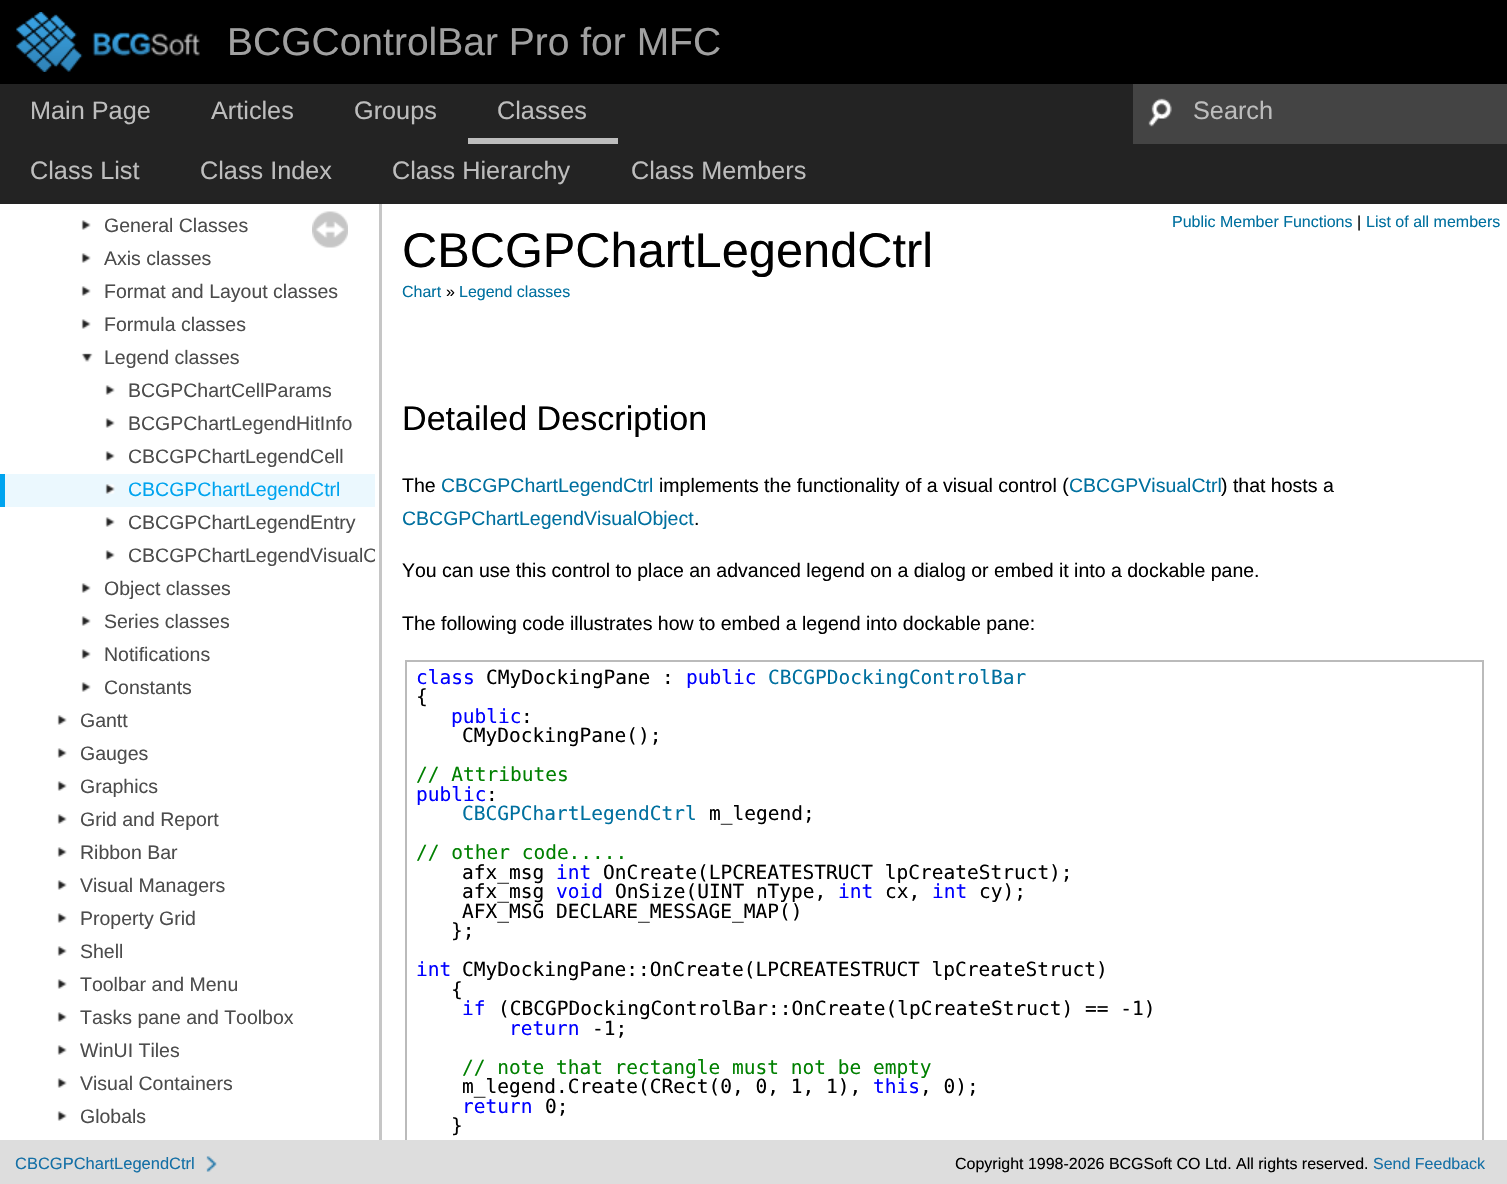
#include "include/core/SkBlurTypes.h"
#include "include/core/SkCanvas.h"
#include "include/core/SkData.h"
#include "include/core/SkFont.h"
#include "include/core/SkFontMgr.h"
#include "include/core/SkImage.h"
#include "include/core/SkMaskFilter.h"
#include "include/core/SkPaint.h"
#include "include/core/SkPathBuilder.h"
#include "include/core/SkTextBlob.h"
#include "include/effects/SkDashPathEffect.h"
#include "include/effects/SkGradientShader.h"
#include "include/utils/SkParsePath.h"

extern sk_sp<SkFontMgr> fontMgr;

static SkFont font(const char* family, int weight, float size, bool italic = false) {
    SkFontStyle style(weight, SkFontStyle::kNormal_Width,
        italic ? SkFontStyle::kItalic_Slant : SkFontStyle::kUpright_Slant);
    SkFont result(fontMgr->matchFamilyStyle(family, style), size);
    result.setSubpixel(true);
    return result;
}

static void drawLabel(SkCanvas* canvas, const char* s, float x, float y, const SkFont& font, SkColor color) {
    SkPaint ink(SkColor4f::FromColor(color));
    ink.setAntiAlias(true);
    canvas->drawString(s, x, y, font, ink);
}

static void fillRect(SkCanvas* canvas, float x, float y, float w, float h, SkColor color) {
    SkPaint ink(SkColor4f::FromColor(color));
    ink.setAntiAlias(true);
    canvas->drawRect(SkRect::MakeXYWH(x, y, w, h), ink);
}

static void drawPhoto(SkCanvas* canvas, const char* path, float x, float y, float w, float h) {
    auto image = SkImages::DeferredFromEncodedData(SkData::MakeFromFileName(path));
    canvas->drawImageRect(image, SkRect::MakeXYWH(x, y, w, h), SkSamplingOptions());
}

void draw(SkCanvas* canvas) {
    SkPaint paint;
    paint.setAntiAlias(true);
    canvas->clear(0xFFFFFFFF);
    fillRect(canvas, 0, 0, 1507, 84, 0xFF000000);
    drawPhoto(canvas, "assets/img1.png", 16, 12, 184, 60);
    SkFont font1 = font("Liberation Sans", 400, 39);
    drawLabel(canvas, "BCGControlBar Pro for MFC", 227, 55, font1, 0xFFA0A0A0);
    fillRect(canvas, 0, 84, 1133, 60, 0xFF232323);
    SkFont font2 = font("Liberation Sans", 400, 25.25f);
    drawLabel(canvas, "Main Page", 30, 119, font2, 0xFFBDBDBD);
    drawLabel(canvas, "Articles", 211, 119, font2, 0xFFBDBDBD);
    drawLabel(canvas, "Groups", 354, 119, font2, 0xFFBDBDBD);
    fillRect(canvas, 468, 138, 150, 6, 0xFFBDBDBD);
    drawLabel(canvas, "Classes", 497, 119, font2, 0xFFBDBDBD);
    fillRect(canvas, 1133, 84, 374, 60, 0xFF444444);
    drawPhoto(canvas, "assets/img2.png", 1148, 98, 24, 29);
    drawLabel(canvas, "Search", 1193, 119, font2, 0xFFBDBDBD);
    fillRect(canvas, 0, 144, 1507, 60, 0xFF232323);
    drawLabel(canvas, "Class List", 30, 179, font2, 0xFFBDBDBD);
    drawLabel(canvas, "Class Index", 200, 179, font2, 0xFFBDBDBD);
    drawLabel(canvas, "Class Hierarchy", 392, 179, font2, 0xFFBDBDBD);
    drawLabel(canvas, "Class Members", 631, 179, font2, 0xFFBDBDBD);
    drawPhoto(canvas, "assets/img3.png", 312, 211, 36, 37);
    drawPhoto(canvas, "assets/img4.png", 81, 220, 10, 10);
    SkFont font3 = font("Liberation Sans", 400, 19.5f);
    drawLabel(canvas, "General Classes", 104, 232, font3, 0xFF4C4C4C);
    drawPhoto(canvas, "assets/img4.png", 81, 253, 10, 10);
    drawLabel(canvas, "Axis classes", 104, 265, font3, 0xFF4C4C4C);
    drawPhoto(canvas, "assets/img4.png", 81, 286, 10, 10);
    drawLabel(canvas, "Format and Layout classes", 104, 298, font3, 0xFF4C4C4C);
    drawPhoto(canvas, "assets/img4.png", 81, 319, 10, 10);
    drawLabel(canvas, "Formula classes", 104, 331, font3, 0xFF4C4C4C);
    drawPhoto(canvas, "assets/img5.png", 81, 353, 12, 9);
    drawLabel(canvas, "Legend classes", 104, 364, font3, 0xFF4C4C4C);
    drawPhoto(canvas, "assets/img4.png", 105, 385, 10, 10);
    drawLabel(canvas, "BCGPChartCellParams", 128, 397, font3, 0xFF4C4C4C);
    drawPhoto(canvas, "assets/img4.png", 105, 418, 10, 10);
    drawLabel(canvas, "BCGPChartLegendHitInfo", 128, 430, font3, 0xFF4C4C4C);
    drawPhoto(canvas, "assets/img4.png", 105, 451, 10, 10);
    drawLabel(canvas, "CBCGPChartLegendCell", 128, 463, font3, 0xFF4C4C4C);
    fillRect(canvas, 5, 474, 370, 33, 0xFFEBF8FE);
    fillRect(canvas, 0, 474, 5, 33, 0xFF00A4EF);
    drawPhoto(canvas, "assets/img6.png", 105, 484, 10, 10);
    drawLabel(canvas, "CBCGPChartLegendCtrl", 128, 496, font3, 0xFF00A4EF);
    drawPhoto(canvas, "assets/img4.png", 105, 517, 10, 10);
    drawLabel(canvas, "CBCGPChartLegendEntry", 128, 529, font3, 0xFF4C4C4C);
    drawPhoto(canvas, "assets/img4.png", 105, 550, 10, 10);
    canvas->save();
    canvas->clipRect(SkRect::MakeXYWH(0, 204, 375, 936));
    drawLabel(canvas, "CBCGPChartLegendVisualO", 128, 562, font3, 0xFF4C4C4C);
    canvas->restore();
    drawPhoto(canvas, "assets/img4.png", 81, 583, 10, 10);
    drawLabel(canvas, "Object classes", 104, 595, font3, 0xFF4C4C4C);
    drawPhoto(canvas, "assets/img4.png", 81, 616, 10, 10);
    drawLabel(canvas, "Series classes", 104, 628, font3, 0xFF4C4C4C);
    drawPhoto(canvas, "assets/img4.png", 81, 649, 10, 10);
    drawLabel(canvas, "Notifications", 104, 661, font3, 0xFF4C4C4C);
    drawPhoto(canvas, "assets/img4.png", 81, 682, 10, 10);
    drawLabel(canvas, "Constants", 104, 694, font3, 0xFF4C4C4C);
    drawPhoto(canvas, "assets/img4.png", 57, 715, 10, 10);
    drawLabel(canvas, "Gantt", 80, 727, font3, 0xFF4C4C4C);
    drawPhoto(canvas, "assets/img4.png", 57, 748, 10, 10);
    drawLabel(canvas, "Gauges", 80, 760, font3, 0xFF4C4C4C);
    drawPhoto(canvas, "assets/img4.png", 57, 781, 10, 10);
    drawLabel(canvas, "Graphics", 80, 793, font3, 0xFF4C4C4C);
    drawPhoto(canvas, "assets/img4.png", 57, 814, 10, 10);
    drawLabel(canvas, "Grid and Report", 80, 826, font3, 0xFF4C4C4C);
    drawPhoto(canvas, "assets/img4.png", 57, 847, 10, 10);
    drawLabel(canvas, "Ribbon Bar", 80, 859, font3, 0xFF4C4C4C);
    drawPhoto(canvas, "assets/img4.png", 57, 880, 10, 10);
    drawLabel(canvas, "Visual Managers", 80, 892, font3, 0xFF4C4C4C);
    drawPhoto(canvas, "assets/img4.png", 57, 913, 10, 10);
    drawLabel(canvas, "Property Grid", 80, 925, font3, 0xFF4C4C4C);
    drawPhoto(canvas, "assets/img4.png", 57, 946, 10, 10);
    drawLabel(canvas, "Shell", 80, 958, font3, 0xFF4C4C4C);
    drawPhoto(canvas, "assets/img4.png", 57, 979, 10, 10);
    drawLabel(canvas, "Toolbar and Menu", 80, 991, font3, 0xFF4C4C4C);
    drawPhoto(canvas, "assets/img4.png", 57, 1012, 10, 10);
    drawLabel(canvas, "Tasks pane and Toolbox", 80, 1024, font3, 0xFF4C4C4C);
    drawPhoto(canvas, "assets/img4.png", 57, 1045, 10, 10);
    drawLabel(canvas, "WinUI Tiles", 80, 1057, font3, 0xFF4C4C4C);
    drawPhoto(canvas, "assets/img4.png", 57, 1078, 10, 10);
    drawLabel(canvas, "Visual Containers", 80, 1090, font3, 0xFF4C4C4C);
    drawPhoto(canvas, "assets/img4.png", 57, 1111, 10, 10);
    drawLabel(canvas, "Globals", 80, 1123, font3, 0xFF4C4C4C);
    fillRect(canvas, 379, 204, 3, 936, 0xFFC6C6C6);
    SkFont font4 = font("Liberation Sans", 400, 16);
    drawLabel(canvas, "Public Member Functions", 1172, 227, font4, 0xFF00709F);
    drawLabel(canvas, "|", 1357, 227, font4, 0xFF000000);
    drawLabel(canvas, "List of all members", 1366, 227, font4, 0xFF00709F);
    SkFont font5 = font("Liberation Sans", 400, 48.75f);
    drawLabel(canvas, "CBCGPChartLegendCtrl", 402, 267, font5, 0xFF000000);
    drawLabel(canvas, "Chart", 402, 297, font4, 0xFF00709F);
    drawLabel(canvas, "»", 446, 297, font4, 0xFF000000);
    drawLabel(canvas, "Legend classes", 459, 297, font4, 0xFF00709F);
    SkFont font6 = font("Liberation Sans", 400, 34.1f);
    drawLabel(canvas, "Detailed Description", 402, 430, font6, 0xFF000000);
    drawLabel(canvas, "The", 402, 492, font3, 0xFF000000);
    drawLabel(canvas, "CBCGPChartLegendCtrl", 441, 492, font3, 0xFF00709F);
    drawLabel(canvas, "implements the functionality of a visual control (", 659, 492, font3, 0xFF000000);
    drawLabel(canvas, "CBCGPVisualCtrl", 1069, 492, font3, 0xFF00709F);
    drawLabel(canvas, ") that hosts a", 1221, 492, font3, 0xFF000000);
    drawLabel(canvas, "CBCGPChartLegendVisualObject", 402, 525, font3, 0xFF00709F);
    drawLabel(canvas, ".", 694, 525, font3, 0xFF000000);
    drawLabel(canvas, "You can use this control to place an advanced legend on a dialog or embed it into a dockable pane.", 402, 577, font3, 0xFF000000);
    drawLabel(canvas, "The following code illustrates how to embed a legend into dockable pane:", 402, 630, font3, 0xFF000000);
    paint.setStroke(true);
    paint.setStrokeWidth(2);
    paint.setColor(0xFFBBBBBB);
    canvas->drawRect(SkRect::MakeXYWH(406, 661, 1077, 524), paint);
    SkFont font7 = font("DejaVu Sans Mono", 400, 19.5f);
    drawLabel(canvas, "class", 416, 684, font7, 0xFF0000FF);
    drawLabel(canvas, "CMyDockingPane :", 486, 684, font7, 0xFF000000);
    drawLabel(canvas, "public", 686, 684, font7, 0xFF0000FF);
    drawLabel(canvas, "CBCGPDockingControlBar", 768, 684, font7, 0xFF00709F);
    drawLabel(canvas, "{", 416, 703, font7, 0xFF000000);
    drawLabel(canvas, "public", 451, 723, font7, 0xFF0000FF);
    drawLabel(canvas, ":", 521, 723, font7, 0xFF000000);
    drawLabel(canvas, "CMyDockingPane();", 462, 742, font7, 0xFF000000);
    drawLabel(canvas, "// Attributes", 416, 781, font7, 0xFF008000);
    drawLabel(canvas, "public", 416, 801, font7, 0xFF0000FF);
    drawLabel(canvas, ":", 486, 801, font7, 0xFF000000);
    drawLabel(canvas, "CBCGPChartLegendCtrl", 462, 820, font7, 0xFF00709F);
    drawLabel(canvas, "m_legend;", 709, 820, font7, 0xFF000000);
    drawLabel(canvas, "// other code.....", 416, 859, font7, 0xFF008000);
    drawLabel(canvas, "afx_msg", 462, 879, font7, 0xFF000000);
    drawLabel(canvas, "int", 556, 879, font7, 0xFF0000FF);
    drawLabel(canvas, "OnCreate(LPCREATESTRUCT lpCreateStruct);", 603, 879, font7, 0xFF000000);
    drawLabel(canvas, "afx_msg", 462, 898, font7, 0xFF000000);
    drawLabel(canvas, "void", 556, 898, font7, 0xFF0000FF);
    drawLabel(canvas, "OnSize(UINT nType,", 615, 898, font7, 0xFF000000);
    drawLabel(canvas, "int", 838, 898, font7, 0xFF0000FF);
    drawLabel(canvas, "cx,", 885, 898, font7, 0xFF000000);
    drawLabel(canvas, "int", 932, 898, font7, 0xFF0000FF);
    drawLabel(canvas, "cy);", 979, 898, font7, 0xFF000000);
    drawLabel(canvas, "AFX_MSG DECLARE_MESSAGE_MAP()", 462, 918, font7, 0xFF000000);
    drawLabel(canvas, "};", 451, 937, font7, 0xFF000000);
    drawLabel(canvas, "int", 416, 976, font7, 0xFF0000FF);
    drawLabel(canvas, "CMyDockingPane::OnCreate(LPCREATESTRUCT lpCreateStruct)", 462, 976, font7, 0xFF000000);
    drawLabel(canvas, "{", 451, 996, font7, 0xFF000000);
    drawLabel(canvas, "if", 462, 1015, font7, 0xFF0000FF);
    drawLabel(canvas, "(CBCGPDockingControlBar::OnCreate(lpCreateStruct) == -1)", 498, 1015, font7, 0xFF000000);
    drawLabel(canvas, "return", 509, 1035, font7, 0xFF0000FF);
    drawLabel(canvas, "-1;", 592, 1035, font7, 0xFF000000);
    drawLabel(canvas, "// note that rectangle must not be empty", 462, 1074, font7, 0xFF008000);
    drawLabel(canvas, "m_legend.Create(CRect(0, 0, 1, 1),", 462, 1093, font7, 0xFF000000);
    drawLabel(canvas, "this", 873, 1093, font7, 0xFF0000FF);
    drawLabel(canvas, ", 0);", 920, 1093, font7, 0xFF000000);
    drawLabel(canvas, "return", 462, 1113, font7, 0xFF0000FF);
    drawLabel(canvas, "0;", 545, 1113, font7, 0xFF000000);
    drawLabel(canvas, "}", 451, 1132, font7, 0xFF000000);
    fillRect(canvas, 0, 1140, 1507, 44, 0xFFDDDDDD);
    drawPhoto(canvas, "assets/img7.png", 206, 1156, 11, 16);
    SkFont font8 = font("Liberation Sans", 400, 16.5f);
    drawLabel(canvas, "CBCGPChartLegendCtrl", 15, 1169, font8, 0xFF1570A6);
    drawLabel(canvas, "Copyright 1998-2026 BCGSoft CO Ltd. All rights reserved.", 955, 1169, font4, 0xFF000000);
    drawLabel(canvas, "Send Feedback", 1373, 1169, font4, 0xFF1570A6);
}
